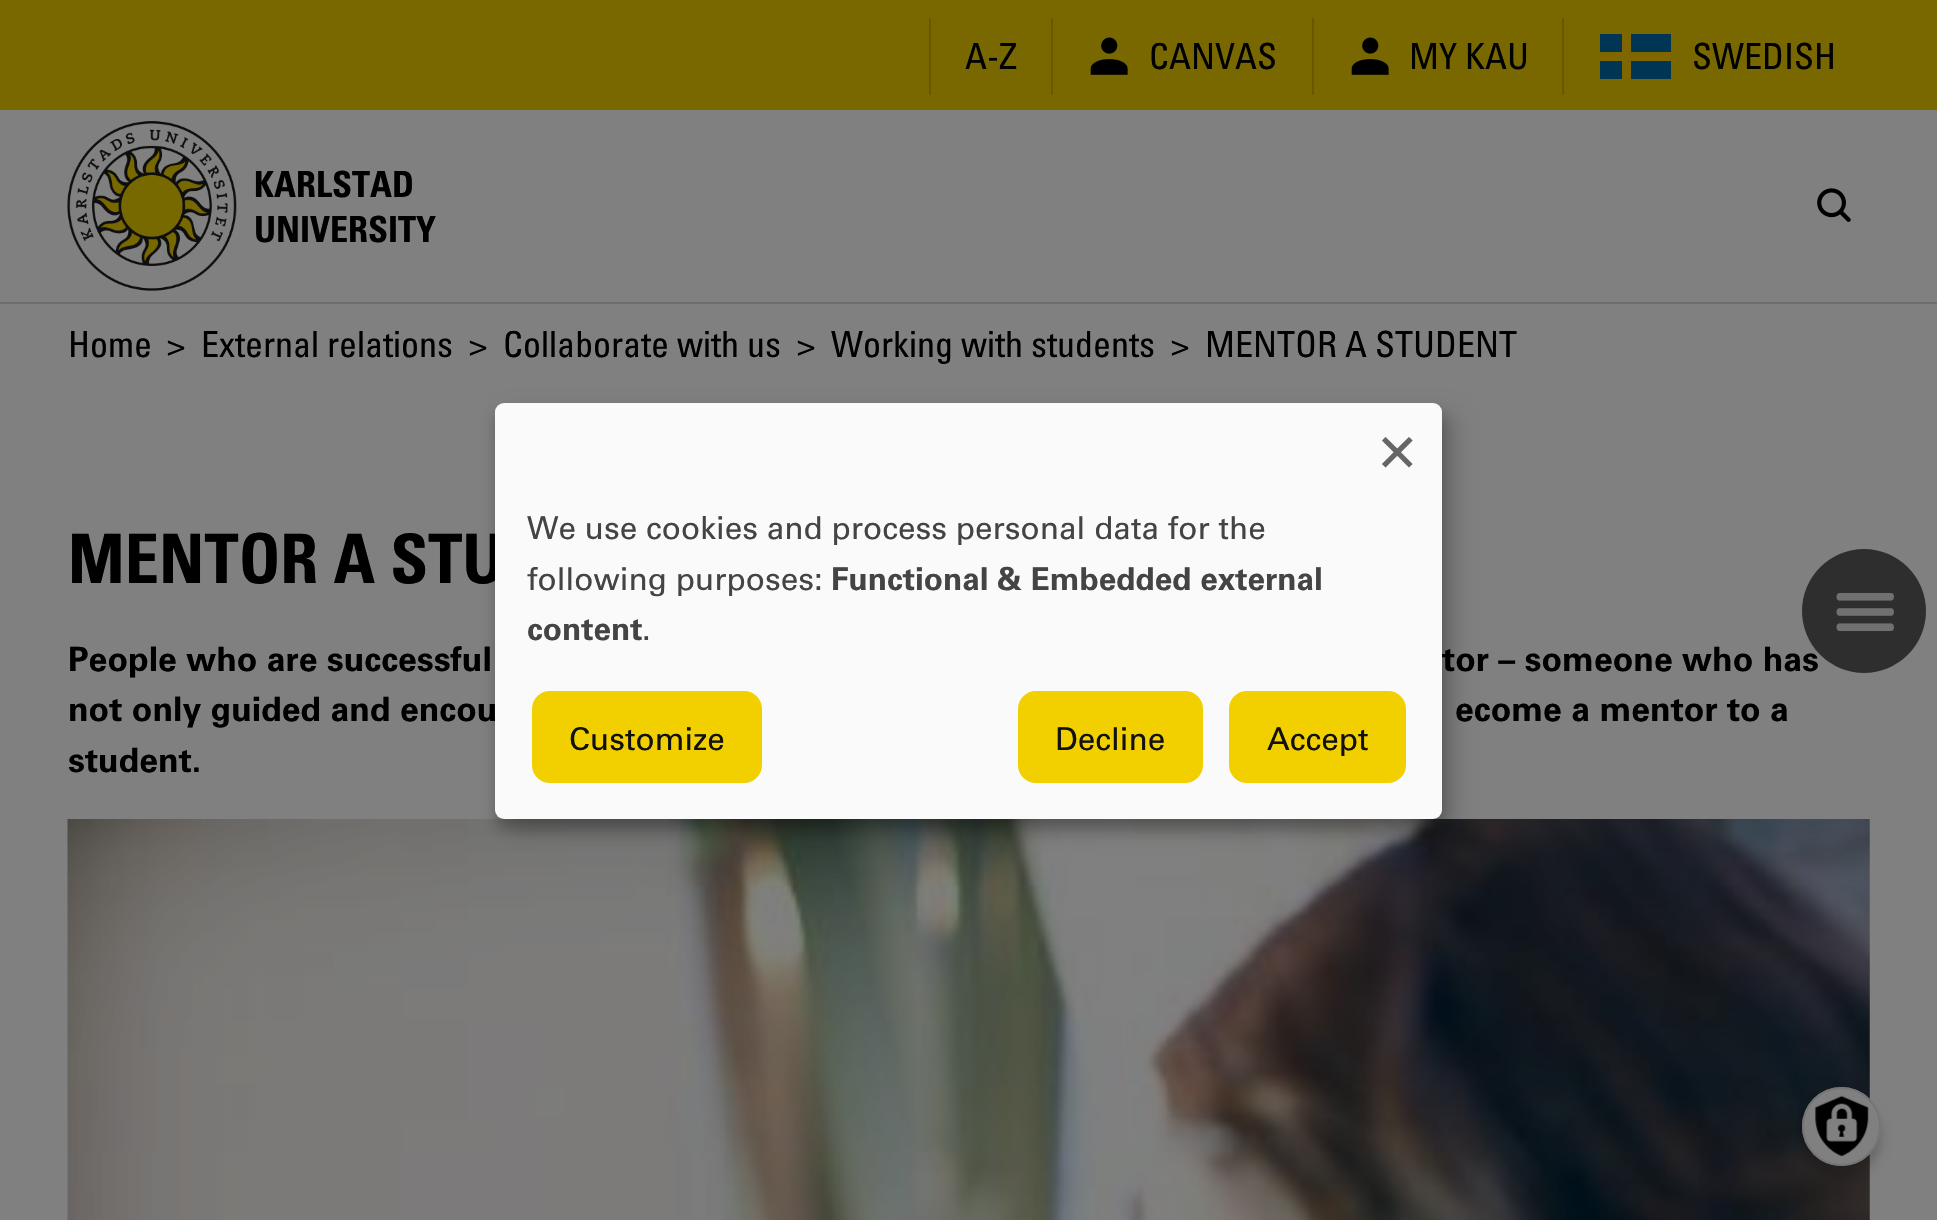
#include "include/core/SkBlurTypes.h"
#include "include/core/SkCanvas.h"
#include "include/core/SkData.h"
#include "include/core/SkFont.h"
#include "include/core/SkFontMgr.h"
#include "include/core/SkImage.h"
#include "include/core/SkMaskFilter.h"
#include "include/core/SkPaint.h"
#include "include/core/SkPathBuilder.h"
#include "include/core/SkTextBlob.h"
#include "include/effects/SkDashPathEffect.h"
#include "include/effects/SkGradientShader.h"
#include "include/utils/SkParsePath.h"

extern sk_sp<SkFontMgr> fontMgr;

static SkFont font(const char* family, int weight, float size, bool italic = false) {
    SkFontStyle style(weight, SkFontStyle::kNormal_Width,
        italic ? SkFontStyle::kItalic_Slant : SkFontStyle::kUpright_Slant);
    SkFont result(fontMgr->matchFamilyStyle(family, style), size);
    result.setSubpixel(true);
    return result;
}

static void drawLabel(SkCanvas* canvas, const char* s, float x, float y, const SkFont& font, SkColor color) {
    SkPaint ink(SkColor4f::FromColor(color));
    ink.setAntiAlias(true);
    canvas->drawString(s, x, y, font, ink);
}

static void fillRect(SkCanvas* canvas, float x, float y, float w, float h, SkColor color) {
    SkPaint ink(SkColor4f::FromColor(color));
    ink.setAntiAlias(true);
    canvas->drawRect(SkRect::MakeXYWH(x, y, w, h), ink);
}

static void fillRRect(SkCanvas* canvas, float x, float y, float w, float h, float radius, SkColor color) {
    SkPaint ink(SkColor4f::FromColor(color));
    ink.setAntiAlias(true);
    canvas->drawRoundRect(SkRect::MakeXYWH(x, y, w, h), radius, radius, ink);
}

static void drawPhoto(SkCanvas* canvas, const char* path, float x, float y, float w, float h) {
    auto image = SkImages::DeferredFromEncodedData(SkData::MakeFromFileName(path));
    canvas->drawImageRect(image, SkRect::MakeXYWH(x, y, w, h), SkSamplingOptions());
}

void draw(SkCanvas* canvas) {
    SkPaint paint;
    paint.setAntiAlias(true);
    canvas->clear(0xFF808080);
    fillRect(canvas, 0, 0, 1937, 110, 0xFF796800);
    fillRect(canvas, 929, 18, 2, 77, 0xFF675900);
    SkFont font1 = font("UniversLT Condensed", 400, 36);
    drawLabel(canvas, "A-Z", 965, 69, font1, 0xFF000000);
    fillRect(canvas, 1051, 18, 2, 77, 0xFF675900);
    drawPhoto(canvas, "assets/img1.png", 1090, 37, 38, 38);
    drawLabel(canvas, "CANVAS", 1149, 69, font1, 0xFF000000);
    fillRect(canvas, 1312, 18, 2, 77, 0xFF675900);
    drawPhoto(canvas, "assets/img1.png", 1351, 37, 38, 38);
    drawLabel(canvas, "MY KAU", 1409, 69, font1, 0xFF000000);
    fillRect(canvas, 1562, 18, 2, 77, 0xFF675900);
    fillRect(canvas, 1600, 34, 71, 45, 0xFF003554);
    fillRect(canvas, 1622, 34, 9, 45, 0xFF7F6600);
    fillRect(canvas, 1600, 52, 71, 9, 0xFF7F6600);
    drawLabel(canvas, "SWEDISH", 1692, 69, font1, 0xFF000000);
    drawPhoto(canvas, "assets/img2.png", 67, 121, 170, 170);
    SkFont font2 = font("UniversLT Condensed", 700, 36);
    drawLabel(canvas, "KARLSTAD", 254, 197, font2, 0xFF000000);
    drawLabel(canvas, "UNIVERSITY", 254, 242, font2, 0xFF000000);
    drawPhoto(canvas, "assets/img3.png", 1817, 188, 34, 34);
    fillRect(canvas, 0, 302, 1937, 2, 0xFF6D6D6D);
    drawLabel(canvas, "Home", 68, 357, font1, 0xFF000000);
    drawLabel(canvas, ">", 167, 357, font1, 0xFF000000);
    drawLabel(canvas, "External relations", 201, 357, font1, 0xFF000000);
    drawLabel(canvas, ">", 469, 357, font1, 0xFF000000);
    drawLabel(canvas, "Collaborate with us", 503, 357, font1, 0xFF000000);
    drawLabel(canvas, ">", 797, 357, font1, 0xFF000000);
    drawLabel(canvas, "Working with students", 831, 357, font1, 0xFF000000);
    drawLabel(canvas, ">", 1171, 357, font1, 0xFF000000);
    drawLabel(canvas, "MENTOR A STUDENT", 1205, 357, font1, 0xFF000000);
    SkFont font3 = font("UniversLT Condensed", 700, 68.25f);
    drawLabel(canvas, "MENTOR A STU", 68, 583, font3, 0xFF000000);
    SkFont font4 = font("Univers", 700, 33.75f);
    drawLabel(canvas, "People who are successful", 68, 671, font4, 0xFF000000);
    drawLabel(canvas, "tor – someone who has", 1442, 671, font4, 0xFF000000);
    drawLabel(canvas, "not only guided and encou", 68, 721, font4, 0xFF000000);
    drawLabel(canvas, "ecome a mentor to a", 1455, 721, font4, 0xFF000000);
    drawLabel(canvas, "student.", 68, 772, font4, 0xFF000000);
    drawPhoto(canvas, "assets/img4.png", 67, 819, 1803, 401);
    paint.setColor(0xFF2E2E2E);
    canvas->drawCircle(1864, 611, 62, paint);
    drawPhoto(canvas, "assets/img5.png", 1836, 593, 58, 38);
    paint.setColor(0x30000000);
    paint.setMaskFilter(SkMaskFilter::MakeBlur(kNormal_SkBlurStyle, 11));
    canvas->drawRoundRect(SkRect::MakeXYWH(506, 414, 948, 416), 9, 9, paint);
    paint.setMaskFilter(nullptr);
    paint.setColor(0x33000000);
    paint.setMaskFilter(SkMaskFilter::MakeBlur(kNormal_SkBlurStyle, 7));
    canvas->drawRoundRect(SkRect::MakeXYWH(495, 412, 947, 416), 9, 9, paint);
    paint.setMaskFilter(nullptr);
    fillRRect(canvas, 495, 403, 947, 416, 9, 0xFFFAFAFA);
    SkFont font5 = font("Univers", 400, 63);
    drawLabel(canvas, "×", 1379, 468, font5, 0xFF666666);
    SkFont font6 = font("Univers", 400, 31.5f);
    drawLabel(canvas, "We use cookies and process personal data for the", 527, 539, font6, 0xFF444444);
    drawLabel(canvas, "following purposes:", 527, 590, font6, 0xFF444444);
    SkFont font7 = font("Univers", 700, 31.5f);
    drawLabel(canvas, "Functional & Embedded external", 831, 590, font7, 0xFF444444);
    drawLabel(canvas, "content", 527, 640, font7, 0xFF444444);
    drawLabel(canvas, ".", 642, 640, font6, 0xFF444444);
    paint.setColor(0xFFF2D000);
    canvas->drawRoundRect(SkRect::MakeXYWH(529.5f, 688.5f, 235, 97), 20.5f, 20.5f, paint);
    paint.setStroke(true);
    paint.setStrokeWidth(5);
    paint.setColor(0xFFFAFAFA);
    canvas->drawRoundRect(SkRect::MakeXYWH(529.5f, 688.5f, 235, 97), 20.5f, 20.5f, paint);
    drawLabel(canvas, "Customize", 569, 750, font6, 0xFF111111);
    paint.setStroke(false);
    paint.setColor(0xFFF2D000);
    canvas->drawRoundRect(SkRect::MakeXYWH(1015.5f, 688.5f, 190, 97), 20.5f, 20.5f, paint);
    paint.setStroke(true);
    paint.setColor(0xFFFAFAFA);
    canvas->drawRoundRect(SkRect::MakeXYWH(1015.5f, 688.5f, 190, 97), 20.5f, 20.5f, paint);
    drawLabel(canvas, "Decline", 1055, 750, font6, 0xFF111111);
    paint.setStroke(false);
    paint.setColor(0xFFF2D000);
    canvas->drawRoundRect(SkRect::MakeXYWH(1226.5f, 688.5f, 182, 97), 20.5f, 20.5f, paint);
    paint.setStroke(true);
    paint.setColor(0xFFFAFAFA);
    canvas->drawRoundRect(SkRect::MakeXYWH(1226.5f, 688.5f, 182, 97), 20.5f, 20.5f, paint);
    drawLabel(canvas, "Accept", 1267, 750, font6, 0xFF111111);
    paint.setStroke(false);
    paint.setColor(0x33000000);
    paint.setMaskFilter(SkMaskFilter::MakeBlur(kNormal_SkBlurStyle, 5.5f));
    canvas->drawRoundRect(SkRect::MakeXYWH(1802, 1098, 79, 79), 39.5f, 39.5f, paint);
    paint.setMaskFilter(nullptr);
    paint.setColor(0xFF808080);
    canvas->drawCircle(1841.5f, 1126.5f, 39.5f, paint);
    drawPhoto(canvas, "assets/img6.png", 1815, 1095, 54, 62);
    paint.setStroke(true);
    paint.setStrokeWidth(2);
    paint.setColor(0xFF757575);
    canvas->drawCircle(1841.5f, 1126.5f, 38.5f, paint);
}
